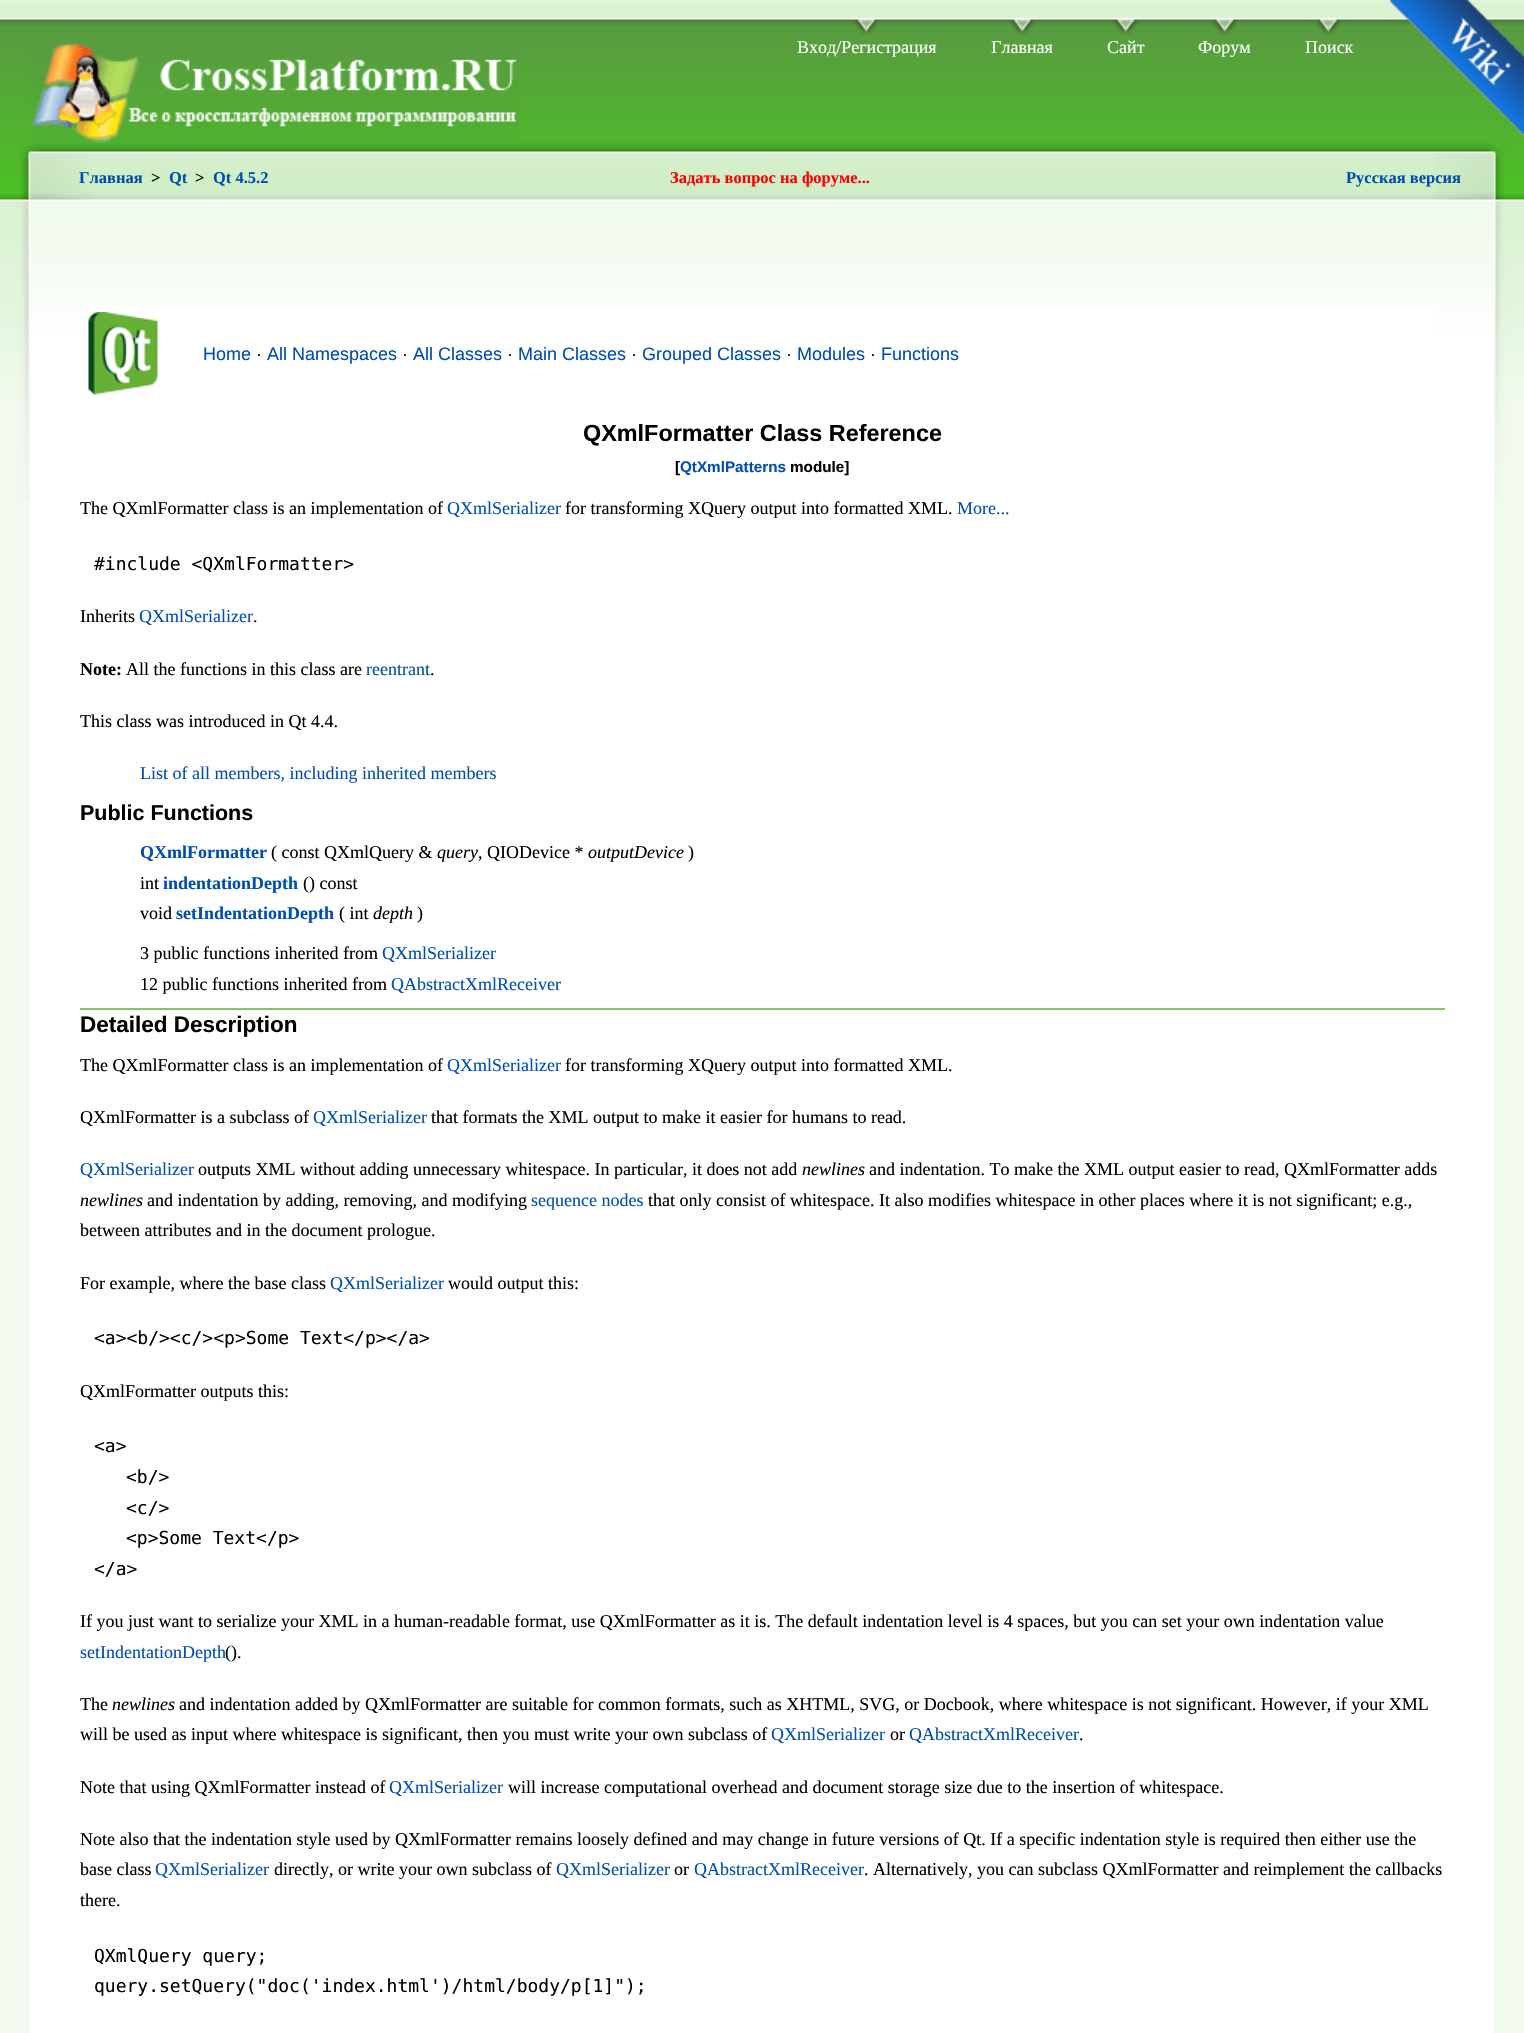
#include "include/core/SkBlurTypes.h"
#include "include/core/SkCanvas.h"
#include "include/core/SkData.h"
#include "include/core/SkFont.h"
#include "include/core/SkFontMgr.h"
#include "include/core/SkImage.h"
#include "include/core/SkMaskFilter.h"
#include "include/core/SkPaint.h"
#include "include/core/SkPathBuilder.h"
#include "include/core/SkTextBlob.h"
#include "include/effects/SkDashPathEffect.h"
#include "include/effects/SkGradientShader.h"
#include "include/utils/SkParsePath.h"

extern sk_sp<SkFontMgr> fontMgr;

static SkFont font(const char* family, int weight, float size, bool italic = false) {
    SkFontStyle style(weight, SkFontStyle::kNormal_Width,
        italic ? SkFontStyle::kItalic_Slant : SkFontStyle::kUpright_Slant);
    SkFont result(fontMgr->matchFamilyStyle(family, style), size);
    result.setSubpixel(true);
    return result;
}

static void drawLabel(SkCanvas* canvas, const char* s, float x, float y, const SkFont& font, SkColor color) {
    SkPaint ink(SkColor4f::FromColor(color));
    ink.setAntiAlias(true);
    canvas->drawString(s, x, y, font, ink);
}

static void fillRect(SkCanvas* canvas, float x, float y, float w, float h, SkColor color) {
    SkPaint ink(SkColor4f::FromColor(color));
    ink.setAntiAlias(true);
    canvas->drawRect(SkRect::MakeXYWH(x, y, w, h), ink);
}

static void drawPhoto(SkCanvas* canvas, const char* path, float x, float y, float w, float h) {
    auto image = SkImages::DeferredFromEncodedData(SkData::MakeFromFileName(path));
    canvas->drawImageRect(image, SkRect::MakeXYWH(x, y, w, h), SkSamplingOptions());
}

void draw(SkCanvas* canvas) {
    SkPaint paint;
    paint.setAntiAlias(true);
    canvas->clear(0xFFDFF4D8);
    fillRect(canvas, 0, 2, 1524, 16, 0xFFDBF2D3);
    drawPhoto(canvas, "assets/img2.png", 0, 18, 1524, 376);
    drawPhoto(canvas, "assets/img1.png", 1390, 0, 134, 135);
    fillRect(canvas, 0, 394, 1524, 1639, 0xFFF2FAEF);
    drawPhoto(canvas, "assets/img7.png", 30, 138, 1464, 168);
    drawPhoto(canvas, "assets/img3.png", 30, 43, 489, 100);
    drawPhoto(canvas, "assets/img4.png", 854, 19, 25, 16);
    SkFont font1 = font("Liberation Serif", 400, 18);
    drawLabel(canvas, "Вход/Регистрация", 797, 53, font1, 0xFFFFFFFF);
    drawPhoto(canvas, "assets/img4.png", 1010, 19, 25, 16);
    drawLabel(canvas, "Главная", 991, 53, font1, 0xFFFFFFFF);
    drawPhoto(canvas, "assets/img5.png", 1113, 19, 25, 16);
    drawLabel(canvas, "Сайт", 1107, 53, font1, 0xFFFFFFFF);
    drawPhoto(canvas, "assets/img5.png", 1212, 19, 25, 16);
    drawLabel(canvas, "Форум", 1198, 53, font1, 0xFFFFFFFF);
    drawPhoto(canvas, "assets/img6.png", 1316, 19, 25, 16);
    drawLabel(canvas, "Поиск", 1305, 53, font1, 0xFFFFFFFF);
    fillRect(canvas, 30, 306, 1464, 1727, 0xFFFFFFFF);
    drawPhoto(canvas, "assets/img8.png", 1434, 145, 71, 355);
    drawPhoto(canvas, "assets/img9.png", 19, 145, 71, 355);
    SkFont font2 = font("Liberation Serif", 700, 16.5f);
    drawLabel(canvas, "Главная", 79, 183, font2, 0xFF004FAF);
    drawLabel(canvas, ">", 151, 183, font2, 0xFF000000);
    drawLabel(canvas, "Qt", 169, 183, font2, 0xFF004FAF);
    drawLabel(canvas, ">", 195, 183, font2, 0xFF000000);
    drawLabel(canvas, "Qt 4.5.2", 213, 183, font2, 0xFF004FAF);
    drawLabel(canvas, "Задать вопрос на форуме...", 670, 183, font2, 0xFFFF0000);
    drawLabel(canvas, "Русская версия", 1346, 183, font2, 0xFF004FAF);
    drawPhoto(canvas, "assets/img10.png", 88, 312, 70, 83);
    SkFont font3 = font("Liberation Sans", 400, 18);
    drawLabel(canvas, "Home", 203, 360, font3, 0xFF004FAF);
    drawLabel(canvas, "·", 256, 360, font3, 0xFF000000);
    drawLabel(canvas, "All Namespaces", 267, 360, font3, 0xFF004FAF);
    drawLabel(canvas, "·", 402, 360, font3, 0xFF000000);
    drawLabel(canvas, "All Classes", 413, 360, font3, 0xFF004FAF);
    drawLabel(canvas, "·", 507, 360, font3, 0xFF000000);
    drawLabel(canvas, "Main Classes", 518, 360, font3, 0xFF004FAF);
    drawLabel(canvas, "·", 631, 360, font3, 0xFF000000);
    drawLabel(canvas, "Grouped Classes", 642, 360, font3, 0xFF004FAF);
    drawLabel(canvas, "·", 786, 360, font3, 0xFF000000);
    drawLabel(canvas, "Modules", 797, 360, font3, 0xFF004FAF);
    drawLabel(canvas, "·", 870, 360, font3, 0xFF000000);
    drawLabel(canvas, "Functions", 881, 360, font3, 0xFF004FAF);
    SkFont font4 = font("Liberation Sans", 700, 23.4f);
    drawLabel(canvas, "QXmlFormatter Class Reference", 583, 441, font4, 0xFF000000);
    SkFont font5 = font("Liberation Sans", 700, 15.25f);
    drawLabel(canvas, "[", 675, 472, font5, 0xFF000000);
    drawLabel(canvas, "QtXmlPatterns", 680, 472, font5, 0xFF004FAF);
    drawLabel(canvas, "module]", 790, 472, font5, 0xFF000000);
    drawLabel(canvas, "The QXmlFormatter class is an implementation of", 80, 514, font1, 0xFF000000);
    drawLabel(canvas, "QXmlSerializer", 447, 514, font1, 0xFF004FAF);
    drawLabel(canvas, "for transforming XQuery output into formatted XML.", 565, 514, font1, 0xFF000000);
    drawLabel(canvas, "More...", 957, 514, font1, 0xFF004FAF);
    SkFont font6 = font("DejaVu Sans Mono", 400, 18);
    drawLabel(canvas, "#include <QXmlFormatter>", 94, 570, font6, 0xFF000000);
    drawLabel(canvas, "Inherits", 80, 622, font1, 0xFF000000);
    drawLabel(canvas, "QXmlSerializer", 139, 622, font1, 0xFF004FAF);
    drawLabel(canvas, ".", 253, 622, font1, 0xFF000000);
    SkFont font7 = font("Liberation Serif", 700, 18);
    drawLabel(canvas, "Note:", 80, 675, font7, 0xFF000000);
    drawLabel(canvas, "All the functions in this class are", 126, 675, font1, 0xFF000000);
    drawLabel(canvas, "reentrant", 366, 675, font1, 0xFF004FAF);
    drawLabel(canvas, ".", 430, 675, font1, 0xFF000000);
    drawLabel(canvas, "This class was introduced in Qt 4.4.", 80, 727, font1, 0xFF000000);
    drawLabel(canvas, "List of all members, including inherited members", 140, 779, font1, 0xFF004FAF);
    SkFont font8 = font("Liberation Sans", 700, 21.5f);
    drawLabel(canvas, "Public Functions", 80, 820, font8, 0xFF000000);
    drawLabel(canvas, "QXmlFormatter", 140, 858, font7, 0xFF004FAF);
    drawLabel(canvas, "( const QXmlQuery &", 271, 858, font1, 0xFF000000);
    SkFont font9 = font("Liberation Serif", 400, 18, true);
    drawLabel(canvas, "query", 437, 858, font9, 0xFF000000);
    drawLabel(canvas, ", QIODevice *", 478, 858, font1, 0xFF000000);
    drawLabel(canvas, "outputDevice", 588, 858, font9, 0xFF000000);
    drawLabel(canvas, ")", 688, 858, font1, 0xFF000000);
    drawLabel(canvas, "int", 140, 889, font1, 0xFF000000);
    drawLabel(canvas, "indentationDepth", 163, 889, font7, 0xFF004FAF);
    drawLabel(canvas, "() const", 303, 889, font1, 0xFF000000);
    drawLabel(canvas, "void", 140, 919, font1, 0xFF000000);
    drawLabel(canvas, "setIndentationDepth", 176, 919, font7, 0xFF004FAF);
    drawLabel(canvas, "( int", 339, 919, font1, 0xFF000000);
    drawLabel(canvas, "depth", 373, 919, font9, 0xFF000000);
    drawLabel(canvas, ")", 417, 919, font1, 0xFF000000);
    drawLabel(canvas, "3 public functions inherited from", 140, 959, font1, 0xFF000000);
    drawLabel(canvas, "QXmlSerializer", 382, 959, font1, 0xFF004FAF);
    drawLabel(canvas, "12 public functions inherited from", 140, 990, font1, 0xFF000000);
    drawLabel(canvas, "QAbstractXmlReceiver", 391, 990, font1, 0xFF004FAF);
    fillRect(canvas, 80, 1008, 1365, 2, 0xFF80C869);
    SkFont font10 = font("Liberation Sans", 700, 22.5f);
    drawLabel(canvas, "Detailed Description", 80, 1032, font10, 0xFF000000);
    drawLabel(canvas, "The QXmlFormatter class is an implementation of", 80, 1071, font1, 0xFF000000);
    drawLabel(canvas, "QXmlSerializer", 447, 1071, font1, 0xFF004FAF);
    drawLabel(canvas, "for transforming XQuery output into formatted XML.", 565, 1071, font1, 0xFF000000);
    drawLabel(canvas, "QXmlFormatter is a subclass of", 80, 1123, font1, 0xFF000000);
    drawLabel(canvas, "QXmlSerializer", 313, 1123, font1, 0xFF004FAF);
    drawLabel(canvas, "that formats the XML output to make it easier for humans to read.", 431, 1123, font1, 0xFF000000);
    drawLabel(canvas, "QXmlSerializer", 80, 1175, font1, 0xFF004FAF);
    drawLabel(canvas, "outputs XML without adding unnecessary whitespace. In particular, it does not add", 198, 1175, font1, 0xFF000000);
    drawLabel(canvas, "newlines", 802, 1175, font9, 0xFF000000);
    drawLabel(canvas, "and indentation. To make the XML output easier to read, QXmlFormatter adds", 869, 1175, font1, 0xFF000000);
    drawLabel(canvas, "newlines", 80, 1206, font9, 0xFF000000);
    drawLabel(canvas, "and indentation by adding, removing, and modifying", 147, 1206, font1, 0xFF000000);
    drawLabel(canvas, "sequence nodes", 531, 1206, font1, 0xFF004FAF);
    drawLabel(canvas, "that only consist of whitespace. It also modifies whitespace in other places where it is not significant; e.g.,", 648, 1206, font1, 0xFF000000);
    drawLabel(canvas, "between attributes and in the document prologue.", 80, 1236, font1, 0xFF000000);
    drawLabel(canvas, "For example, where the base class", 80, 1289, font1, 0xFF000000);
    drawLabel(canvas, "QXmlSerializer", 330, 1289, font1, 0xFF004FAF);
    drawLabel(canvas, "would output this:", 448, 1289, font1, 0xFF000000);
    drawLabel(canvas, "<a><b/><c/><p>Some Text</p></a>", 94, 1344, font6, 0xFF000000);
    drawLabel(canvas, "QXmlFormatter outputs this:", 80, 1397, font1, 0xFF000000);
    drawLabel(canvas, "<a>", 94, 1452, font6, 0xFF000000);
    drawLabel(canvas, "<b/>", 126, 1483, font6, 0xFF000000);
    drawLabel(canvas, "<c/>", 126, 1514, font6, 0xFF000000);
    drawLabel(canvas, "<p>Some Text</p>", 126, 1544, font6, 0xFF000000);
    drawLabel(canvas, "</a>", 94, 1575, font6, 0xFF000000);
    drawLabel(canvas, "If you just want to serialize your XML in a human-readable format, use QXmlFormatter as it is. The default indentation level is 4 spaces, but you can set your own indentation value", 80, 1627, font1, 0xFF000000);
    drawLabel(canvas, "setIndentationDepth", 80, 1658, font1, 0xFF004FAF);
    drawLabel(canvas, "().", 225, 1658, font1, 0xFF000000);
    drawLabel(canvas, "The", 80, 1710, font1, 0xFF000000);
    drawLabel(canvas, "newlines", 112, 1710, font9, 0xFF000000);
    drawLabel(canvas, "and indentation added by QXmlFormatter are suitable for common formats, such as XHTML, SVG, or Docbook, where whitespace is not significant. However, if your XML", 179, 1710, font1, 0xFF000000);
    drawLabel(canvas, "will be used as input where whitespace is significant, then you must write your own subclass of", 80, 1740, font1, 0xFF000000);
    drawLabel(canvas, "QXmlSerializer", 771, 1740, font1, 0xFF004FAF);
    drawLabel(canvas, "or", 890, 1740, font1, 0xFF000000);
    drawLabel(canvas, "QAbstractXmlReceiver", 909, 1740, font1, 0xFF004FAF);
    drawLabel(canvas, ".", 1079, 1740, font1, 0xFF000000);
    drawLabel(canvas, "Note that using QXmlFormatter instead of", 80, 1793, font1, 0xFF000000);
    drawLabel(canvas, "QXmlSerializer", 389, 1793, font1, 0xFF004FAF);
    drawLabel(canvas, "will increase computational overhead and document storage size due to the insertion of whitespace.", 508, 1793, font1, 0xFF000000);
    drawLabel(canvas, "Note also that the indentation style used by QXmlFormatter remains loosely defined and may change in future versions of Qt. If a specific indentation style is required then either use the", 80, 1845, font1, 0xFF000000);
    drawLabel(canvas, "base class", 80, 1875, font1, 0xFF000000);
    drawLabel(canvas, "QXmlSerializer", 155, 1875, font1, 0xFF004FAF);
    drawLabel(canvas, "directly, or write your own subclass of", 274, 1875, font1, 0xFF000000);
    drawLabel(canvas, "QXmlSerializer", 556, 1875, font1, 0xFF004FAF);
    drawLabel(canvas, "or", 674, 1875, font1, 0xFF000000);
    drawLabel(canvas, "QAbstractXmlReceiver", 694, 1875, font1, 0xFF004FAF);
    drawLabel(canvas, ". Alternatively, you can subclass QXmlFormatter and reimplement the callbacks", 864, 1875, font1, 0xFF000000);
    drawLabel(canvas, "there.", 80, 1906, font1, 0xFF000000);
    drawLabel(canvas, "QXmlQuery query;", 94, 1962, font6, 0xFF000000);
    drawLabel(canvas, "query.setQuery(\"doc('index.html')/html/body/p[1]\");", 94, 1992, font6, 0xFF000000);
}
